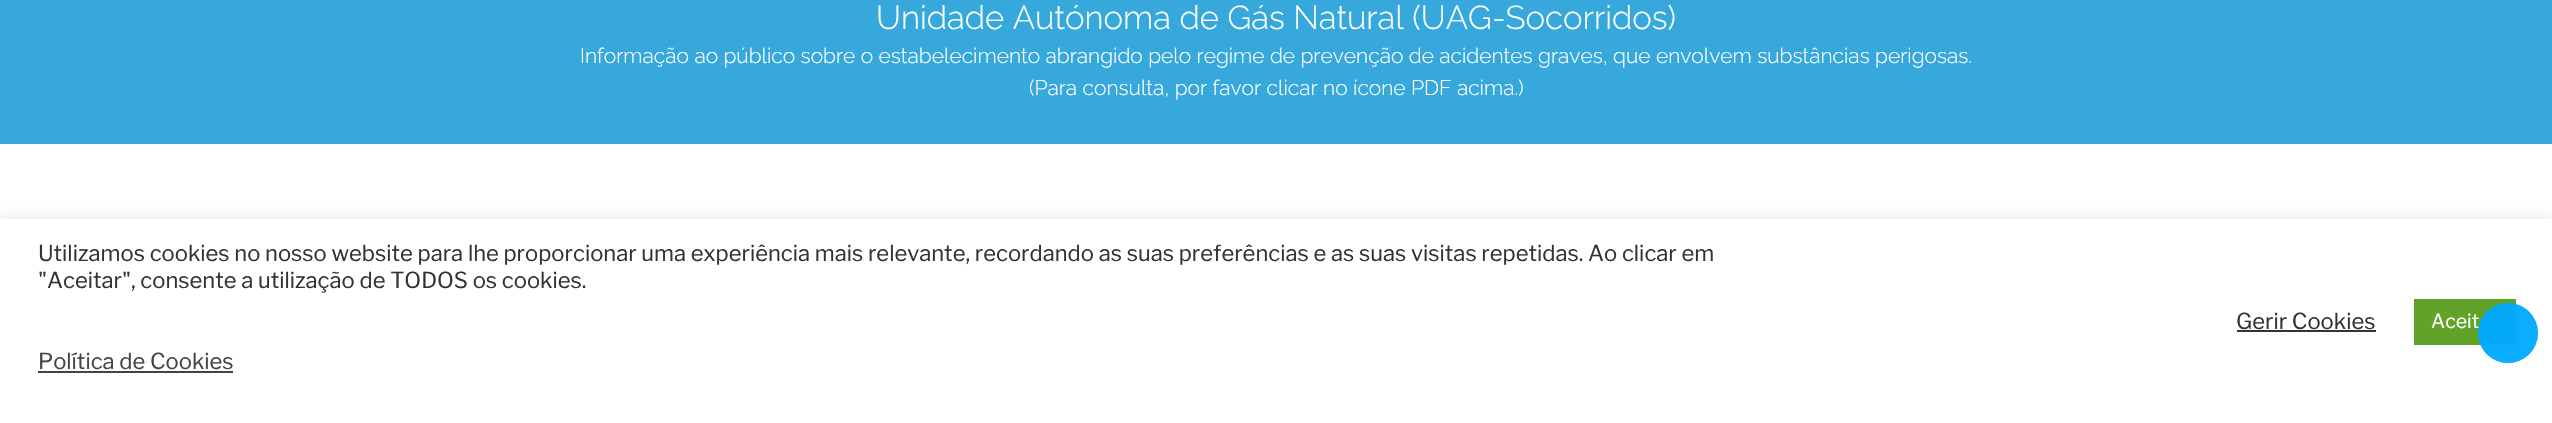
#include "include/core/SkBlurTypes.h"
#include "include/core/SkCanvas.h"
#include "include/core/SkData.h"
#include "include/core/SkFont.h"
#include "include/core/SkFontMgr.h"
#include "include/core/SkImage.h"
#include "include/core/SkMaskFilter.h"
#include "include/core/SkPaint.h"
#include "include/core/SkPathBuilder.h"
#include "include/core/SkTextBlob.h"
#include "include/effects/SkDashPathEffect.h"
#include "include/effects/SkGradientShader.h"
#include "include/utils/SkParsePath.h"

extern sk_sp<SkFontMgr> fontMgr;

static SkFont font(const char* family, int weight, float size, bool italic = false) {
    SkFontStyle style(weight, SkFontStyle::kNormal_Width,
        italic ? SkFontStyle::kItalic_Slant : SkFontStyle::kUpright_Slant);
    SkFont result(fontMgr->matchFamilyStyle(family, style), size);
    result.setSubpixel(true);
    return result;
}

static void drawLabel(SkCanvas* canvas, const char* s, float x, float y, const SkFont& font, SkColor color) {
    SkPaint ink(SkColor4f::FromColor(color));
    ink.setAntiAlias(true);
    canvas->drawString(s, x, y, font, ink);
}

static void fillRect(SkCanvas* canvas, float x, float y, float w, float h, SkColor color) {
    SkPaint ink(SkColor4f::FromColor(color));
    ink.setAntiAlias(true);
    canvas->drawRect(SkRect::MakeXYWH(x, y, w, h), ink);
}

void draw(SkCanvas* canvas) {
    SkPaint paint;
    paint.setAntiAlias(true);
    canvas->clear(0xFFFFFFFF);
    fillRect(canvas, 0, 0, 2552, 144, 0xFF37A8DB);
    SkFont font1 = font("Raleway", 300, 33);
    drawLabel(canvas, "Unidade Autónoma de Gás Natural (UAG-Socorridos)", 876, 29, font1, 0xFFFFFFFF);
    SkFont font2 = font("Raleway", 300, 21);
    drawLabel(canvas, "Informação ao público sobre o estabelecimento abrangido pelo regime de prevenção de acidentes graves, que envolvem substâncias perigosas.", 580, 63, font2, 0xFFFFFFFF);
    drawLabel(canvas, "(Para consulta, por favor clicar no ícone PDF acima.)", 1029, 95, font2, 0xFFFFFFFF);
    paint.setColor(0x4DACABAB);
    paint.setMaskFilter(SkMaskFilter::MakeBlur(kNormal_SkBlurStyle, 7.5f));
    canvas->drawRect(SkRect::MakeXYWH(0, 218, 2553, 204), paint);
    paint.setMaskFilter(nullptr);
    fillRect(canvas, 0, 219, 2552, 204, 0xFFFFFFFF);
    SkFont font3 = font("Libre Franklin", 400, 22);
    drawLabel(canvas, "Utilizamos cookies no nosso website para lhe proporcionar uma experiência mais relevante, recordando as suas preferências e as suas visitas repetidas. Ao clicar em", 38, 261, font3, 0xFF333333);
    drawLabel(canvas, "\"Aceitar\", consente a utilização de TODOS os cookies.", 38, 288, font3, 0xFF333333);
    drawLabel(canvas, "Política de Cookies", 38, 369, font3, 0xFF444444);
    fillRect(canvas, 38, 371, 195, 2, 0xFF444444);
    drawLabel(canvas, "Gerir Cookies", 2236, 329, font3, 0xFF333333);
    fillRect(canvas, 2237, 330, 139, 2, 0xFF333333);
    fillRect(canvas, 2414, 299, 102, 46, 0xFF61A229);
    SkFont font4 = font("Libre Franklin", 400, 19.5f);
    drawLabel(canvas, "Aceit", 2431, 328, font4, 0xFFFFFFFF);
    paint.setColor(0xCC00A9FF);
    canvas->drawCircle(2508, 333, 30, paint);
    canvas->drawCircle(2508, 333, 30, paint);
}
